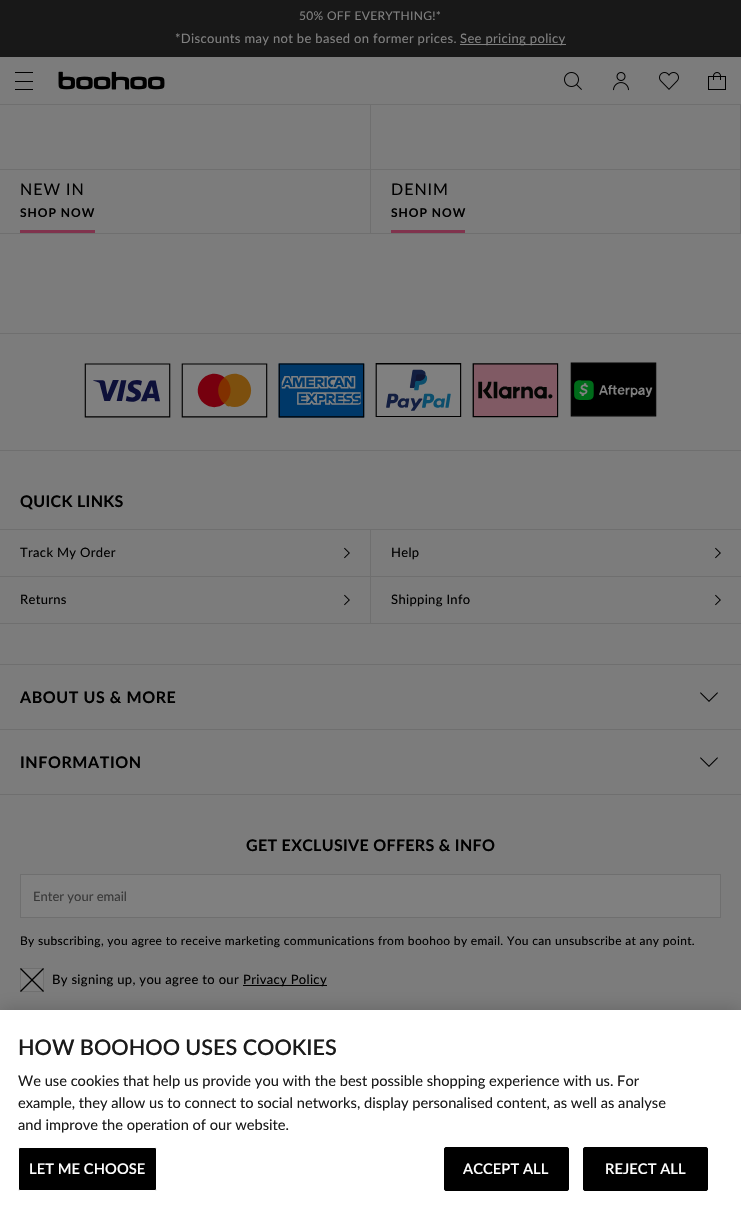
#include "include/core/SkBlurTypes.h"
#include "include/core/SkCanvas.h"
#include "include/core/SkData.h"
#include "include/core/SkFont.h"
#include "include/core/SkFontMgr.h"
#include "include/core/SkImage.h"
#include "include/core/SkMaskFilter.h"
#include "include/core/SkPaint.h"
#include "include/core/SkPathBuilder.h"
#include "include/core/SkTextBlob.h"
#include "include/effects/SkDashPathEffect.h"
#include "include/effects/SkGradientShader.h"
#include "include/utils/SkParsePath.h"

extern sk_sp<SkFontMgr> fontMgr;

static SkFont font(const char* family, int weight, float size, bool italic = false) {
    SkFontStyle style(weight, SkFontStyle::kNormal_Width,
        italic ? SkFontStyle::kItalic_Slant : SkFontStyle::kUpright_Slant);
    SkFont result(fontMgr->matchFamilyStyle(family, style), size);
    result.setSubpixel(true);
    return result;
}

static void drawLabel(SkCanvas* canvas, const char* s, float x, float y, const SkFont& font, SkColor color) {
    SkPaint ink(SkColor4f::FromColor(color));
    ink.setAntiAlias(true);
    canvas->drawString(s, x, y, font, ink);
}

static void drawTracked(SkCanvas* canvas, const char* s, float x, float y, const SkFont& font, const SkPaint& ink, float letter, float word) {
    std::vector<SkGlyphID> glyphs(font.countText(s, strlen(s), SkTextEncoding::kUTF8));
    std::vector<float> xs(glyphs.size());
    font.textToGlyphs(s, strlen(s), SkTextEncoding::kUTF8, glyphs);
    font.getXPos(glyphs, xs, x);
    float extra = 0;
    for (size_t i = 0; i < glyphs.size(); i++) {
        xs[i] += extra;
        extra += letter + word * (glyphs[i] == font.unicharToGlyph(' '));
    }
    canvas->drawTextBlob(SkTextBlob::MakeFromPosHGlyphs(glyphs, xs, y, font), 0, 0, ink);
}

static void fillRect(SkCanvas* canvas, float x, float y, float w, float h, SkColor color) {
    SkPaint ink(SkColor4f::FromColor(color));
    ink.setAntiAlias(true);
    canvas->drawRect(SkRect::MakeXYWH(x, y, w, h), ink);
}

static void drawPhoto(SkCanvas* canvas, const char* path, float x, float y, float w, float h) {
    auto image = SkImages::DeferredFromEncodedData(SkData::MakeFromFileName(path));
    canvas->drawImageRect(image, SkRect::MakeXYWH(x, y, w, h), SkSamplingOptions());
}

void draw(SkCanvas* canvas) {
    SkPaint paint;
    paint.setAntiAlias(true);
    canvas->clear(0xFF7C7C7C);
    paint.setStroke(true);
    paint.setStrokeWidth(1);
    paint.setColor(0xFF6F6F6F);
    canvas->drawRect(SkRect::MakeXYWH(-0.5f, -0.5f, 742, 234), paint);
    fillRect(canvas, 0, 0, 741, 57, 0xFF181818);
    SkFont font1 = font("Lato", 400, 12);
    paint.setStroke(false);
    paint.setColor(0xFF808080);
    drawTracked(canvas, "50% OFF EVERYTHING!*", 299, 20, font1, paint, 0.33f, 0);
    SkFont font2 = font("Lato", 400, 13);
    drawTracked(canvas, "*Discounts may not be based on former prices.", 175, 43, font2, paint, 0.33f, 0);
    fillRect(canvas, 460, 44, 106, 1, 0xFF808080);
    drawTracked(canvas, "See pricing policy", 460, 43, font2, paint, 0.33f, 0);
    fillRect(canvas, 0, 104, 741, 1, 0xFF6F6F6F);
    fillRect(canvas, 15, 72, 18, 1, 0xFF000000);
    fillRect(canvas, 15, 89, 18, 1, 0xFF000000);
    fillRect(canvas, 15, 81, 18, 1, 0xFF000000);
    drawPhoto(canvas, "assets/img1.png", 58, 71, 107, 19);
    drawPhoto(canvas, "assets/img2.png", 564, 72, 18, 18);
    drawPhoto(canvas, "assets/img3.png", 613, 72, 16, 19);
    drawPhoto(canvas, "assets/img4.png", 659, 72, 20, 18);
    drawPhoto(canvas, "assets/img5.png", 708, 72, 18, 18);
    fillRect(canvas, 370, 105, 1, 128, 0xFF6F6F6F);
    fillRect(canvas, 0, 169, 370, 1, 0xFF6F6F6F);
    SkFont font3 = font("Lato", 400, 16);
    paint.setColor(0xFF000000);
    drawTracked(canvas, "NEW IN", 20, 195, font3, paint, 1, 0);
    SkFont font4 = font("Lato", 700, 12);
    drawTracked(canvas, "SHOP NOW", 20, 217, font4, paint, 1, 0);
    fillRect(canvas, 20, 230, 75, 3, 0xFF80334D);
    fillRect(canvas, 740, 105, 1, 128, 0xFF6F6F6F);
    fillRect(canvas, 371, 169, 369, 1, 0xFF6F6F6F);
    drawTracked(canvas, "DENIM", 391, 195, font3, paint, 1, 0);
    drawTracked(canvas, "SHOP NOW", 391, 217, font4, paint, 1, 0);
    fillRect(canvas, 391, 230, 74, 3, 0xFF80334D);
    fillRect(canvas, 0, 333, 741, 1, 0xFF6F6F6F);
    fillRect(canvas, 0, 450, 741, 1, 0xFF6F6F6F);
    drawPhoto(canvas, "assets/img6.png", 84, 362, 573, 56);
    SkFont font5 = font("Lato", 700, 16);
    drawTracked(canvas, "QUICK LINKS", 20, 507, font5, paint, 0.33f, 0);
    fillRect(canvas, 0, 529, 741, 1, 0xFF6F6F6F);
    fillRect(canvas, 370, 529, 1, 48, 0xFF6F6F6F);
    fillRect(canvas, 0, 576, 741, 1, 0xFF6F6F6F);
    drawTracked(canvas, "Track My Order", 20, 557, font2, paint, 0.33f, 0);
    drawPhoto(canvas, "assets/img7.png", 344, 547, 6, 12);
    drawTracked(canvas, "Help", 391, 557, font2, paint, 0.33f, 0);
    drawPhoto(canvas, "assets/img7.png", 715, 547, 6, 12);
    fillRect(canvas, 370, 576, 1, 48, 0xFF6F6F6F);
    fillRect(canvas, 0, 623, 741, 1, 0xFF6F6F6F);
    drawTracked(canvas, "Returns", 20, 604, font2, paint, 0.33f, 0);
    drawPhoto(canvas, "assets/img7.png", 344, 594, 6, 12);
    drawTracked(canvas, "Shipping Info", 391, 604, font2, paint, 0.33f, 0);
    drawPhoto(canvas, "assets/img7.png", 715, 594, 6, 12);
    fillRect(canvas, 0, 664, 741, 1, 0xFF6F6F6F);
    drawTracked(canvas, "ABOUT US & MORE", 20, 703, font5, paint, 0.6f, 0);
    drawPhoto(canvas, "assets/img8.png", 700, 692, 18, 10);
    fillRect(canvas, 0, 729, 741, 1, 0xFF6F6F6F);
    fillRect(canvas, 0, 794, 741, 1, 0xFF6F6F6F);
    drawTracked(canvas, "INFORMATION", 20, 768, font5, paint, 0.6f, 0);
    drawPhoto(canvas, "assets/img8.png", 700, 757, 18, 10);
    drawTracked(canvas, "GET EXCLUSIVE OFFERS & INFO", 246, 851, font5, paint, 0.33f, 0);
    paint.setColor(0xFF808080);
    canvas->drawRect(SkRect::MakeXYWH(20.5f, 874.5f, 700, 43), paint);
    paint.setStroke(true);
    paint.setColor(0xFF6F6F6F);
    canvas->drawRect(SkRect::MakeXYWH(20.5f, 874.5f, 700, 43), paint);
    drawLabel(canvas, "Enter your email", 33, 901, font2, 0xFF393939);
    paint.setStroke(false);
    paint.setColor(0xFF000000);
    drawTracked(canvas, "By subscribing, you agree to receive marketing communications from boohoo by email. You can unsubscribe at any point.", 20, 945, font1, paint, 0.33f, 0);
    paint.setColor(0xFF808080);
    canvas->drawRect(SkRect::MakeXYWH(20.5f, 968.5f, 23, 23), paint);
    paint.setStroke(true);
    paint.setColor(0xFF6F6F6F);
    canvas->drawRect(SkRect::MakeXYWH(20.5f, 968.5f, 23, 23), paint);
    drawPhoto(canvas, "assets/img9.png", 20, 968, 24, 24);
    paint.setStroke(false);
    paint.setColor(0xFF000000);
    drawTracked(canvas, "By signing up, you agree to our", 52, 984, font2, paint, 0.33f, 0);
    fillRect(canvas, 243, 985, 84, 1, 0xFF000000);
    drawTracked(canvas, "Privacy Policy", 243, 984, font2, paint, 0.33f, 0);
    paint.setColor(0x33000000);
    paint.setMaskFilter(SkMaskFilter::MakeBlur(kNormal_SkBlurStyle, 9));
    canvas->drawRect(SkRect::MakeXYWH(0, 1010, 741, 199), paint);
    paint.setMaskFilter(nullptr);
    fillRect(canvas, 0, 1010, 741, 199, 0xFFFFFFFF);
    SkFont font6 = font("Lato", 600, 21.6f);
    drawLabel(canvas, "HOW BOOHOO USES COOKIES", 18, 1055, font6, 0xFF1B1B1B);
    SkFont font7 = font("Lato", 400, 14.65f);
    drawLabel(canvas, "We use cookies that help us provide you with the best possible shopping experience with us. For", 18, 1086, font7, 0xFF1B1B1B);
    drawLabel(canvas, "example, they allow us to connect to social networks, display personalised content, as well as analyse", 18, 1108, font7, 0xFF1B1B1B);
    drawLabel(canvas, "and improve the operation of our website.", 18, 1130, font7, 0xFF1B1B1B);
    paint.setColor(0xFF000000);
    canvas->drawRoundRect(SkRect::MakeXYWH(18.5f, 1147.5f, 138, 43), 1.5f, 1.5f, paint);
    paint.setStroke(true);
    paint.setColor(0xFFFFFFFF);
    canvas->drawRoundRect(SkRect::MakeXYWH(18.5f, 1147.5f, 138, 43), 1.5f, 1.5f, paint);
    SkFont font8 = font("Lato", 600, 14.65f);
    paint.setStroke(false);
    drawTracked(canvas, "LET ME CHOOSE", 29, 1174, font8, paint, 0.1f, 0);
    paint.setColor(0xFF000000);
    canvas->drawRoundRect(SkRect::MakeXYWH(444.5f, 1147.5f, 124, 43), 1.5f, 1.5f, paint);
    paint.setStroke(true);
    canvas->drawRoundRect(SkRect::MakeXYWH(444.5f, 1147.5f, 124, 43), 1.5f, 1.5f, paint);
    paint.setStroke(false);
    paint.setColor(0xFFFFFFFF);
    drawTracked(canvas, "ACCEPT ALL", 463, 1174, font8, paint, 0.1f, 0);
    paint.setColor(0xFF000000);
    canvas->drawRoundRect(SkRect::MakeXYWH(583.5f, 1147.5f, 124, 43), 1.5f, 1.5f, paint);
    paint.setStroke(true);
    canvas->drawRoundRect(SkRect::MakeXYWH(583.5f, 1147.5f, 124, 43), 1.5f, 1.5f, paint);
    paint.setStroke(false);
    paint.setColor(0xFFFFFFFF);
    drawTracked(canvas, "REJECT ALL", 605, 1174, font8, paint, 0.1f, 0);
}
